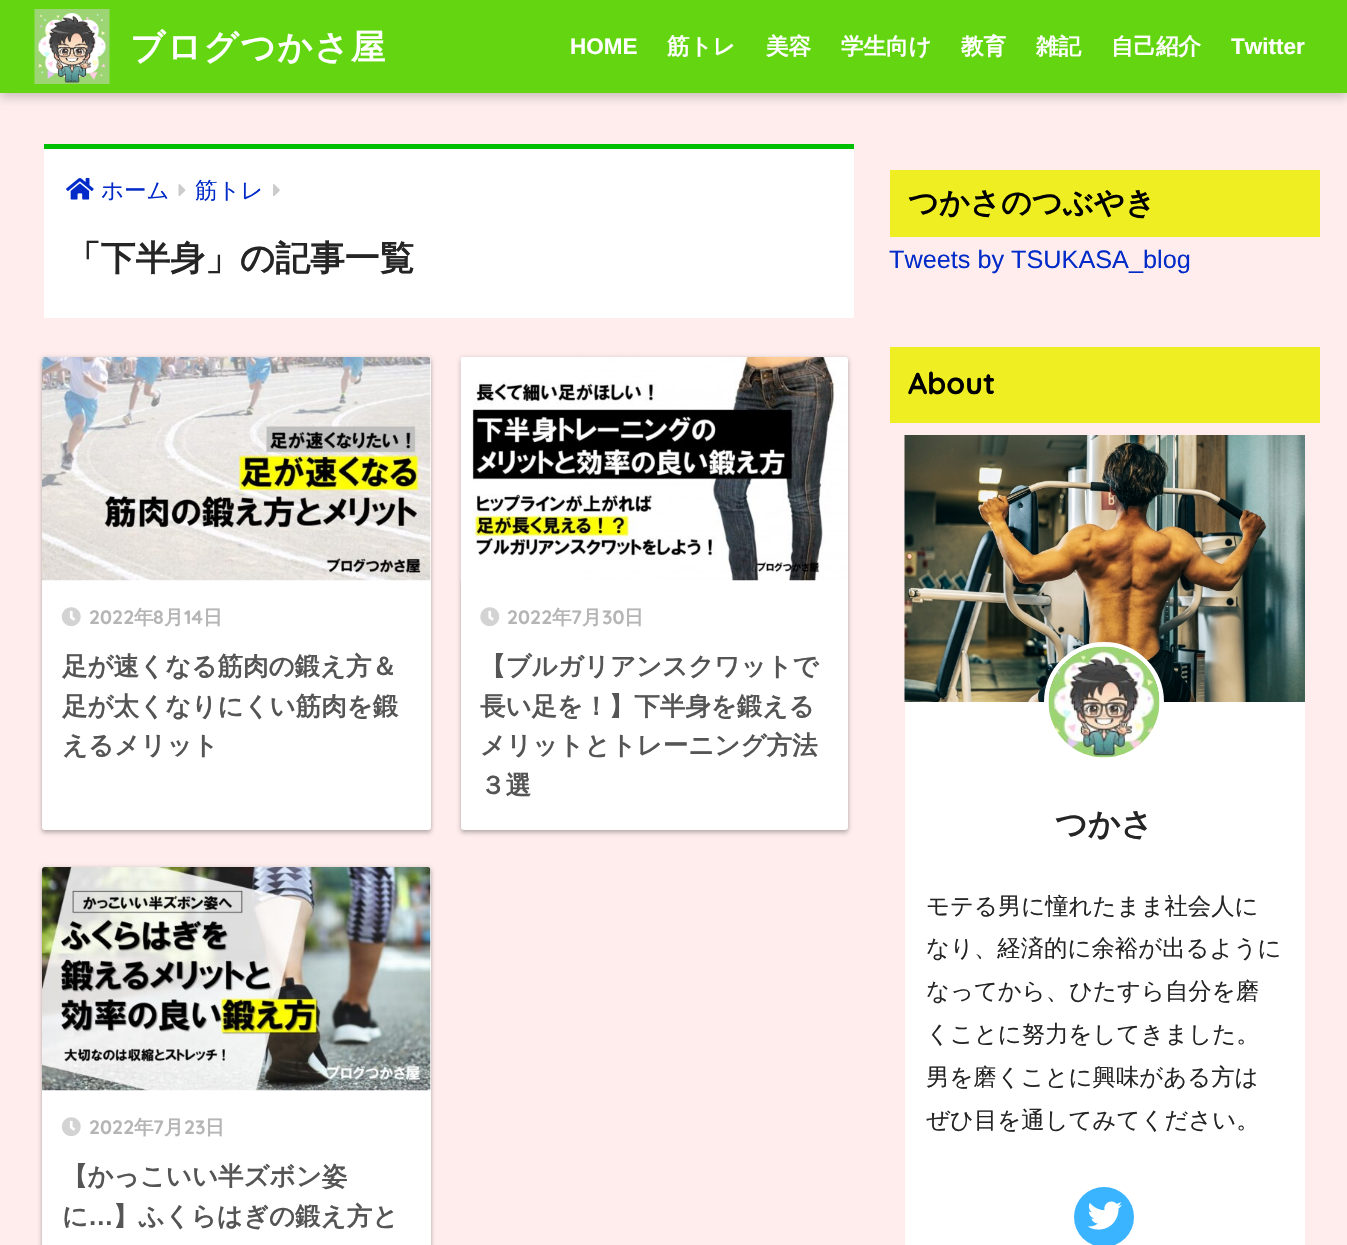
#include "include/core/SkBlurTypes.h"
#include "include/core/SkCanvas.h"
#include "include/core/SkData.h"
#include "include/core/SkFont.h"
#include "include/core/SkFontMgr.h"
#include "include/core/SkImage.h"
#include "include/core/SkMaskFilter.h"
#include "include/core/SkPaint.h"
#include "include/core/SkPathBuilder.h"
#include "include/core/SkTextBlob.h"
#include "include/effects/SkDashPathEffect.h"
#include "include/effects/SkGradientShader.h"
#include "include/utils/SkParsePath.h"

extern sk_sp<SkFontMgr> fontMgr;

static SkFont font(const char* family, int weight, float size, bool italic = false) {
    SkFontStyle style(weight, SkFontStyle::kNormal_Width,
        italic ? SkFontStyle::kItalic_Slant : SkFontStyle::kUpright_Slant);
    SkFont result(fontMgr->matchFamilyStyle(family, style), size);
    result.setSubpixel(true);
    return result;
}

static void drawLabel(SkCanvas* canvas, const char* s, float x, float y, const SkFont& font, SkColor color) {
    SkPaint ink(SkColor4f::FromColor(color));
    ink.setAntiAlias(true);
    canvas->drawString(s, x, y, font, ink);
}

static void drawTracked(SkCanvas* canvas, const char* s, float x, float y, const SkFont& font, const SkPaint& ink, float letter, float word) {
    std::vector<SkGlyphID> glyphs(font.countText(s, strlen(s), SkTextEncoding::kUTF8));
    std::vector<float> xs(glyphs.size());
    font.textToGlyphs(s, strlen(s), SkTextEncoding::kUTF8, glyphs);
    font.getXPos(glyphs, xs, x);
    float extra = 0;
    for (size_t i = 0; i < glyphs.size(); i++) {
        xs[i] += extra;
        extra += letter + word * (glyphs[i] == font.unicharToGlyph(' '));
    }
    canvas->drawTextBlob(SkTextBlob::MakeFromPosHGlyphs(glyphs, xs, y, font), 0, 0, ink);
}

static void fillRect(SkCanvas* canvas, float x, float y, float w, float h, SkColor color) {
    SkPaint ink(SkColor4f::FromColor(color));
    ink.setAntiAlias(true);
    canvas->drawRect(SkRect::MakeXYWH(x, y, w, h), ink);
}

static void fillRRect(SkCanvas* canvas, float x, float y, float w, float h, float radius, SkColor color) {
    SkPaint ink(SkColor4f::FromColor(color));
    ink.setAntiAlias(true);
    canvas->drawRoundRect(SkRect::MakeXYWH(x, y, w, h), radius, radius, ink);
}

static void drawPhoto(SkCanvas* canvas, const char* path, float x, float y, float w, float h) {
    auto image = SkImages::DeferredFromEncodedData(SkData::MakeFromFileName(path));
    canvas->drawImageRect(image, SkRect::MakeXYWH(x, y, w, h), SkSamplingOptions());
}

void draw(SkCanvas* canvas) {
    SkPaint paint;
    paint.setAntiAlias(true);
    canvas->clear(0xFFFFEDED);
    paint.setColor(0x2E000000);
    paint.setMaskFilter(SkMaskFilter::MakeBlur(kNormal_SkBlurStyle, 4.5f));
    canvas->drawRect(SkRect::MakeXYWH(0, 5, 1347, 93), paint);
    paint.setMaskFilter(nullptr);
    fillRect(canvas, 0, 0, 1347, 93, 0xFF63D611);
    drawPhoto(canvas, "assets/img1.png", 34, 9, 76, 75);
    SkFont font1 = font("WenQuanYi Zen Hei", 700, 34.5f);
    paint.setColor(0xFFFFFFFF);
    drawTracked(canvas, "ブログつかさ屋", 130, 59, font1, paint, 1.5f, 0);
    SkFont font2 = font("Liberation Sans", 700, 22.5f);
    drawLabel(canvas, "HOME", 570, 54, font2, 0xFFFFFFFF);
    SkFont font3 = font("WenQuanYi Zen Hei", 700, 22.5f);
    drawLabel(canvas, "筋トレ", 667, 54, font3, 0xFFFFFFFF);
    drawLabel(canvas, "美容", 766, 54, font3, 0xFFFFFFFF);
    drawLabel(canvas, "学生向け", 841, 54, font3, 0xFFFFFFFF);
    drawLabel(canvas, "教育", 961, 54, font3, 0xFFFFFFFF);
    drawLabel(canvas, "雑記", 1036, 54, font3, 0xFFFFFFFF);
    drawLabel(canvas, "自己紹介", 1111, 54, font3, 0xFFFFFFFF);
    drawLabel(canvas, "Twitter", 1231, 54, font2, 0xFFFFFFFF);
    fillRect(canvas, 44, 149, 810, 169, 0xFFFFFFFF);
    fillRect(canvas, 44, 144, 810, 5, 0xFF00BF03);
    drawPhoto(canvas, "assets/img2.png", 66, 178, 28, 22);
    SkFont font4 = font("WenQuanYi Zen Hei", 500, 22.5f);
    drawLabel(canvas, "ホーム", 101, 198, font4, 0xFF002BC9);
    drawPhoto(canvas, "assets/img3.png", 178, 184, 8, 13);
    drawLabel(canvas, "筋トレ", 195, 198, font4, 0xFF002BC9);
    drawPhoto(canvas, "assets/img4.png", 273, 184, 7, 12);
    SkFont font5 = font("WenQuanYi Zen Hei", 700, 34.75f);
    drawLabel(canvas, "「下半身」の記事一覧", 66, 270, font5, 0xFF252525);
    paint.setColor(0x38000000);
    paint.setMaskFilter(SkMaskFilter::MakeBlur(kNormal_SkBlurStyle, 2));
    canvas->drawRoundRect(SkRect::MakeXYWH(42, 360, 389, 473), 3, 3, paint);
    paint.setMaskFilter(nullptr);
    paint.setColor(0x1F000000);
    paint.setMaskFilter(SkMaskFilter::MakeBlur(kNormal_SkBlurStyle, 2));
    canvas->drawRoundRect(SkRect::MakeXYWH(42, 357, 389, 473), 3, 3, paint);
    paint.setMaskFilter(nullptr);
    fillRRect(canvas, 42, 357, 389, 473, 3, 0xFFFFFFFF);
    drawPhoto(canvas, "assets/img5.png", 42, 357, 389, 224);
    drawPhoto(canvas, "assets/img6.png", 61, 607, 20, 20);
    SkFont font6 = font("Quicksand", 700, 19.5f);
    drawLabel(canvas, "2022", 89, 624, font6, 0xFFB5B5B5);
    SkFont font7 = font("WenQuanYi Zen Hei", 700, 19.5f);
    drawLabel(canvas, "年", 134, 624, font7, 0xFFB5B5B5);
    drawLabel(canvas, "8", 153, 624, font6, 0xFFB5B5B5);
    drawLabel(canvas, "月", 164, 624, font7, 0xFFB5B5B5);
    drawLabel(canvas, "14", 184, 624, font6, 0xFFB5B5B5);
    drawLabel(canvas, "日", 203, 624, font7, 0xFFB5B5B5);
    SkFont font8 = font("WenQuanYi Zen Hei", 700, 25.5f);
    drawLabel(canvas, "足が速くなる筋肉の鍛え方＆", 62, 675, font8, 0xFF555555);
    drawLabel(canvas, "足が太くなりにくい筋肉を鍛", 62, 715, font8, 0xFF555555);
    drawLabel(canvas, "えるメリット", 62, 754, font8, 0xFF555555);
    paint.setColor(0x38000000);
    paint.setMaskFilter(SkMaskFilter::MakeBlur(kNormal_SkBlurStyle, 2));
    canvas->drawRoundRect(SkRect::MakeXYWH(461, 360, 387, 473), 3, 3, paint);
    paint.setMaskFilter(nullptr);
    paint.setColor(0x1F000000);
    paint.setMaskFilter(SkMaskFilter::MakeBlur(kNormal_SkBlurStyle, 2));
    canvas->drawRoundRect(SkRect::MakeXYWH(461, 357, 387, 473), 3, 3, paint);
    paint.setMaskFilter(nullptr);
    fillRRect(canvas, 461, 357, 387, 473, 3, 0xFFFFFFFF);
    drawPhoto(canvas, "assets/img7.png", 460, 357, 387, 224);
    drawPhoto(canvas, "assets/img8.png", 480, 607, 20, 20);
    drawLabel(canvas, "2022", 507, 624, font6, 0xFFB5B5B5);
    drawLabel(canvas, "年", 552, 624, font7, 0xFFB5B5B5);
    drawLabel(canvas, "7", 571, 624, font6, 0xFFB5B5B5);
    drawLabel(canvas, "月", 582, 624, font7, 0xFFB5B5B5);
    drawLabel(canvas, "30", 602, 624, font6, 0xFFB5B5B5);
    drawLabel(canvas, "日", 624, 624, font7, 0xFFB5B5B5);
    drawLabel(canvas, "【ブルガリアンスクワットで", 480, 675, font8, 0xFF555555);
    drawLabel(canvas, "長い足を！】下半身を鍛える", 480, 715, font8, 0xFF555555);
    drawLabel(canvas, "メリットとトレーニング方法", 480, 754, font8, 0xFF555555);
    drawLabel(canvas, "３選", 480, 794, font8, 0xFF555555);
    paint.setColor(0x38000000);
    paint.setMaskFilter(SkMaskFilter::MakeBlur(kNormal_SkBlurStyle, 2));
    canvas->drawRoundRect(SkRect::MakeXYWH(42, 870, 389, 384), 3, 3, paint);
    paint.setMaskFilter(nullptr);
    paint.setColor(0x1F000000);
    paint.setMaskFilter(SkMaskFilter::MakeBlur(kNormal_SkBlurStyle, 2));
    canvas->drawRoundRect(SkRect::MakeXYWH(42, 867, 389, 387), 3, 3, paint);
    paint.setMaskFilter(nullptr);
    fillRRect(canvas, 42, 867, 389, 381, 3, 0xFFFFFFFF);
    drawPhoto(canvas, "assets/img9.png", 42, 867, 389, 224);
    drawPhoto(canvas, "assets/img6.png", 61, 1117, 20, 20);
    drawLabel(canvas, "2022", 89, 1134, font6, 0xFFB5B5B5);
    drawLabel(canvas, "年", 134, 1134, font7, 0xFFB5B5B5);
    drawLabel(canvas, "7", 153, 1134, font6, 0xFFB5B5B5);
    drawLabel(canvas, "月", 164, 1134, font7, 0xFFB5B5B5);
    drawLabel(canvas, "23", 184, 1134, font6, 0xFFB5B5B5);
    drawLabel(canvas, "日", 205, 1134, font7, 0xFFB5B5B5);
    drawLabel(canvas, "【かっこいい半ズボン姿", 62, 1185, font8, 0xFF555555);
    drawLabel(canvas, "に", 62, 1225, font8, 0xFF555555);
    SkFont font9 = font("Liberation Sans", 700, 25.5f);
    drawLabel(canvas, "…", 88, 1225, font9, 0xFF555555);
    drawLabel(canvas, "】ふくらはぎの鍛え方と", 113, 1225, font8, 0xFF555555);
    fillRect(canvas, 890, 170, 430, 67, 0xFFEEEE22);
    SkFont font10 = font("WenQuanYi Zen Hei", 700, 30.25f);
    drawLabel(canvas, "つかさのつぶやき", 908, 213, font10, 0xFF000000);
    SkFont font11 = font("Liberation Sans", 400, 25.25f);
    drawLabel(canvas, "Tweets by TSUKASA_blog", 889, 268, font11, 0xFF002BC9);
    fillRect(canvas, 890, 347, 430, 76, 0xFFEEEE22);
    SkFont font12 = font("Quicksand", 700, 30.25f);
    drawLabel(canvas, "About", 908, 394, font12, 0xFF000000);
    fillRect(canvas, 905, 702, 400, 543, 0xFFFFFFFF);
    drawPhoto(canvas, "assets/img10.png", 904, 435, 401, 267);
    paint.setStroke(true);
    paint.setStrokeWidth(5);
    paint.setColor(0xFFFFFFFF);
    canvas->drawCircle(1104, 702, 57.5f, paint);
    drawPhoto(canvas, "assets/img11.png", 1048, 646, 112, 112);
    SkFont font13 = font("WenQuanYi Zen Hei", 700, 32);
    drawLabel(canvas, "つかさ", 1055, 835, font13, 0xFF252525);
    SkFont font14 = font("WenQuanYi Zen Hei", 500, 23.4f);
    drawLabel(canvas, "モテる男に憧れたまま社会人に", 926, 914, font14, 0xFF252525);
    drawLabel(canvas, "なり、経済的に余裕が出るように", 926, 956, font14, 0xFF252525);
    drawLabel(canvas, "なってから、ひたすら自分を磨", 926, 999, font14, 0xFF252525);
    drawLabel(canvas, "くことに努力をしてきました。", 926, 1042, font14, 0xFF252525);
    drawLabel(canvas, "男を磨くことに興味がある方は", 926, 1085, font14, 0xFF252525);
    drawLabel(canvas, "ぜひ目を通してみてください。", 926, 1128, font14, 0xFF252525);
    paint.setStroke(false);
    paint.setColor(0xFF3AB4FF);
    canvas->drawCircle(1104, 1217, 30, paint);
    drawPhoto(canvas, "assets/img12.png", 1087, 1201, 35, 29);
}
